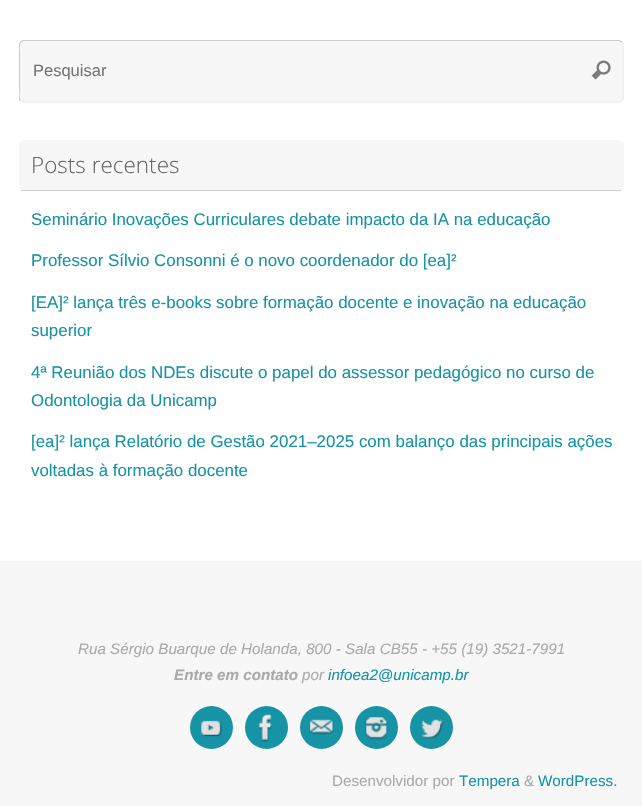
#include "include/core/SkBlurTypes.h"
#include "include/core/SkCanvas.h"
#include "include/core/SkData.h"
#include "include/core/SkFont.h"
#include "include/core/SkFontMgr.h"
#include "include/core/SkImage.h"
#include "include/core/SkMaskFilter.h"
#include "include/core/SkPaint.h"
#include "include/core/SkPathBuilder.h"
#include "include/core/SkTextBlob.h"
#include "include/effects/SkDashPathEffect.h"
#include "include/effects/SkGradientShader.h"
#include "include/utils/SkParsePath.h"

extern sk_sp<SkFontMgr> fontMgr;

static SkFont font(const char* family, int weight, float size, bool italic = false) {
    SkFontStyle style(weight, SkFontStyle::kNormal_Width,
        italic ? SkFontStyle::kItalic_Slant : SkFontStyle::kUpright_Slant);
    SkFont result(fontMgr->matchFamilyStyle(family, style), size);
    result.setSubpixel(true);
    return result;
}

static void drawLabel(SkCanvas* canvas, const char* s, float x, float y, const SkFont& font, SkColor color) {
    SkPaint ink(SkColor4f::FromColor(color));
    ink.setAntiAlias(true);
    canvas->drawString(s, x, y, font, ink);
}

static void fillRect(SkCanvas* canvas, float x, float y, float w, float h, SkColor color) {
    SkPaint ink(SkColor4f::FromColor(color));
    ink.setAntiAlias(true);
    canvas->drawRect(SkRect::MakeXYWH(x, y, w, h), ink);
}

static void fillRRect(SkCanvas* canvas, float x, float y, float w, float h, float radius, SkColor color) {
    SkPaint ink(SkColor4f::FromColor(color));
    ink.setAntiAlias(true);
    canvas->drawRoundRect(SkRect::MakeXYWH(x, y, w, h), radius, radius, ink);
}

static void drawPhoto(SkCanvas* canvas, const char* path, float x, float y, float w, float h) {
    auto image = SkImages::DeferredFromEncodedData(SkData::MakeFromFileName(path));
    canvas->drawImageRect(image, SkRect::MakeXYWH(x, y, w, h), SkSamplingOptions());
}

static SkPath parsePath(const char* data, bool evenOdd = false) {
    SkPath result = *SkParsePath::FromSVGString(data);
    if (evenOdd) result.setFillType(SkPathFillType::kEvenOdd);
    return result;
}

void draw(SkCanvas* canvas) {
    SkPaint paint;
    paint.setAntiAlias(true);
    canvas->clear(0xFFFFFFFF);
    fillRRect(canvas, 19, 40, 605, 63, 5, 0xFFF7F7F7);
    paint.setStroke(true);
    paint.setStrokeWidth(1.2f);
    paint.setColor(0xFFEEEEEE);
    canvas->drawPath(parsePath("M622 42C624.5 44.5 623 52 623 54V89C623 92 625 102 619 102H23.5L20.5 100.5"), paint);
    canvas->save();
    canvas->clipRect(SkRect::MakeXYWH(19, 40, 605, 63));
    paint.setColor(0xFFCCCCCC);
    canvas->drawPath(parsePath("M20.5 100.5C18 98 19.5 90.5 19.5 89V54C19.5 50.5 17.5 40.5 24 40.5H619L622 42"), paint);
    canvas->restore();
    SkFont font1 = font("Liberation Sans", 400, 16.5f);
    drawLabel(canvas, "Pesquisar", 33, 76, font1, 0xFF757575);
    drawPhoto(canvas, "assets/img1.png", 591, 60, 20, 20);
    fillRRect(canvas, 19, 140, 605, 51, 5, 0xFFF7F7F7);
    fillRect(canvas, 21, 190, 600, 1, 0xFFCFCFCF);
    SkFont font2 = font("Open Sans", 300, 22.5f);
    drawLabel(canvas, "Posts recentes", 31, 173, font2, 0xFF666666);
    SkFont font3 = font("Liberation Sans", 400, 16.9f);
    drawLabel(canvas, "Seminário Inovações Curriculares debate impacto da IA na educação", 31, 225, font3, 0xFF1693A5);
    drawLabel(canvas, "Professor Sílvio Consonni é o novo coordenador do [ea]²", 31, 266, font3, 0xFF1693A5);
    drawLabel(canvas, "[EA]² lança três e-books sobre formação docente e inovação na educação", 31, 308, font3, 0xFF1693A5);
    drawLabel(canvas, "superior", 31, 336, font3, 0xFF1693A5);
    drawLabel(canvas, "4ª Reunião dos NDEs discute o papel do assessor pedagógico no curso de", 31, 378, font3, 0xFF1693A5);
    drawLabel(canvas, "Odontologia da Unicamp", 31, 406, font3, 0xFF1693A5);
    drawLabel(canvas, "[ea]² lança Relatório de Gestão 2021–2025 com balanço das principais ações", 31, 447, font3, 0xFF1693A5);
    drawLabel(canvas, "voltadas à formação docente", 31, 476, font3, 0xFF1693A5);
    fillRect(canvas, 0, 561, 642, 245, 0xFFF7F7F7);
    SkFont font4 = font("Liberation Sans", 400, 15.2f, true);
    drawLabel(canvas, "Rua Sérgio Buarque de Holanda, 800 - Sala CB55 - +55 (19) 3521-7991", 78, 654, font4, 0xFFAAAAAA);
    SkFont font5 = font("Liberation Sans", 700, 15.2f, true);
    drawLabel(canvas, "Entre em contato", 174, 680, font5, 0xFFAAAAAA);
    drawLabel(canvas, "por", 302, 680, font4, 0xFFAAAAAA);
    drawLabel(canvas, "infoea2@unicamp.br", 328, 680, font4, 0xFF1693A5);
    paint.setStroke(false);
    paint.setColor(0xFF1693A5);
    canvas->drawCircle(211.5f, 727.5f, 21.5f, paint);
    drawPhoto(canvas, "assets/img2.png", 201, 720, 21, 17);
    canvas->drawCircle(266.5f, 727.5f, 21.5f, paint);
    drawPhoto(canvas, "assets/img3.png", 258, 714, 14, 28);
    canvas->drawCircle(321.5f, 727.5f, 21.5f, paint);
    drawPhoto(canvas, "assets/img4.png", 309, 719, 25, 16);
    canvas->drawCircle(376.5f, 727.5f, 21.5f, paint);
    drawPhoto(canvas, "assets/img5.png", 365, 717, 23, 23);
    canvas->drawCircle(431.5f, 727.5f, 21.5f, paint);
    drawPhoto(canvas, "assets/img6.png", 421, 719, 23, 20);
    SkFont font6 = font("Liberation Sans", 400, 15.2f);
    drawLabel(canvas, "Desenvolvidor por", 332, 786, font6, 0xFFAAAAAA);
    drawLabel(canvas, "Tempera", 459, 786, font6, 0xFF1693A5);
    drawLabel(canvas, "&", 524, 786, font6, 0xFFAAAAAA);
    drawLabel(canvas, "WordPress.", 538, 786, font6, 0xFF1693A5);
}
